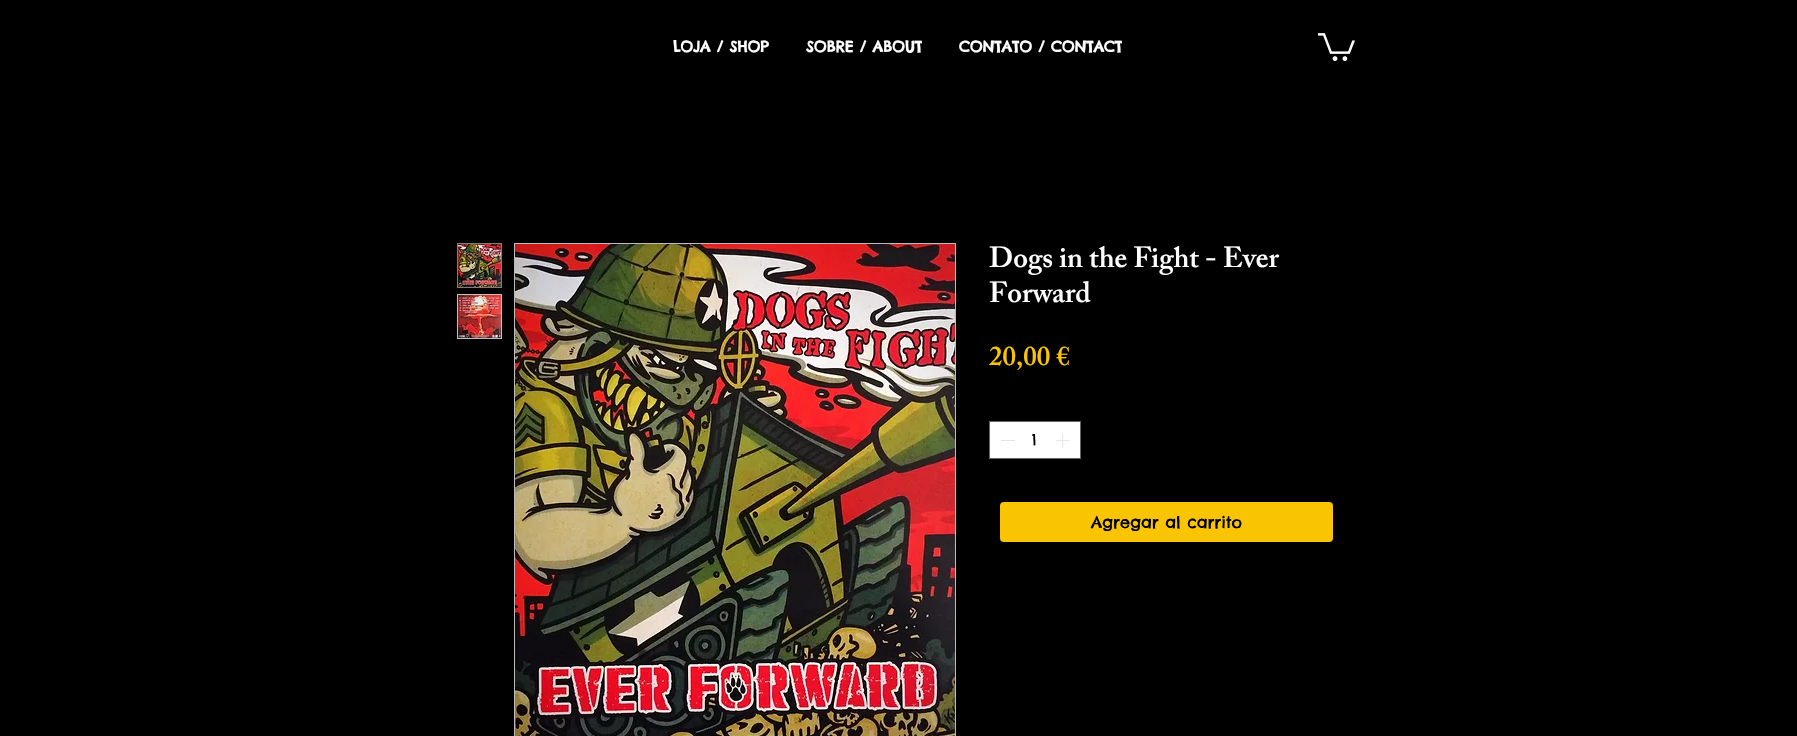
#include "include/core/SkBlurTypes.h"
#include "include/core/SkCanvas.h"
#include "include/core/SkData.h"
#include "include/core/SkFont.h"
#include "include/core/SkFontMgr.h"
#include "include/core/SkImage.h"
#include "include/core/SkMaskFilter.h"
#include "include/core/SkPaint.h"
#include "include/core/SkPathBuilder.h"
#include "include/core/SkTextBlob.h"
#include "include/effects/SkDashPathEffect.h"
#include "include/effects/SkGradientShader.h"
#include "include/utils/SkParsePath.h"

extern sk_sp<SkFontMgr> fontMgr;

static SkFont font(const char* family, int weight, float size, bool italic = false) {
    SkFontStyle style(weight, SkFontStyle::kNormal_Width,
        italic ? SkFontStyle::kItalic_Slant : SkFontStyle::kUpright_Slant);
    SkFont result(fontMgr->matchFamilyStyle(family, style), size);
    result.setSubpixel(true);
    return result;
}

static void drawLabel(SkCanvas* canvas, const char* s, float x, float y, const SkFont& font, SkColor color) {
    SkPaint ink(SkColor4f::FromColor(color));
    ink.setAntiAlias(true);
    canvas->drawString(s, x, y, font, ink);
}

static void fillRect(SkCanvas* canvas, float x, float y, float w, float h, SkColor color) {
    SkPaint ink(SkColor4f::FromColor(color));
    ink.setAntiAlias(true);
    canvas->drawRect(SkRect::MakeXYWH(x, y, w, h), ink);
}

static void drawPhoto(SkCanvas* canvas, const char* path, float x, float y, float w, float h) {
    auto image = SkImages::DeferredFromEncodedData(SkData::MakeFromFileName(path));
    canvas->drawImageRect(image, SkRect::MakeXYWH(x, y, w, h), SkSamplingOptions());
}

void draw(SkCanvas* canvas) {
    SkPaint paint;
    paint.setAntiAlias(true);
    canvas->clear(0xFF000000);
    SkFont font1 = font("Chelsea Market", 700, 15);
    drawLabel(canvas, "LOJA / SHOP", 673, 52, font1, 0xFFFFFFFF);
    drawLabel(canvas, "SOBRE / ABOUT", 806, 52, font1, 0xFFFFFFFF);
    drawLabel(canvas, "CONTATO / CONTACT", 959, 52, font1, 0xFFFFFFFF);
    drawPhoto(canvas, "assets/img1.png", 1318, 33, 37, 28);
    paint.setStroke(true);
    paint.setStrokeWidth(1);
    paint.setColor(0xFF7E7E7E);
    canvas->drawRect(SkRect::MakeXYWH(457.5f, 243.5f, 44, 44), paint);
    drawPhoto(canvas, "assets/img2.png", 458, 244, 43, 43);
    fillRect(canvas, 457, 294, 45, 45, 0xFFC0C0C0);
    drawPhoto(canvas, "assets/img3.png", 458, 295, 43, 43);
    paint.setColor(0xFFBCBCBC);
    canvas->drawRect(SkRect::MakeXYWH(514.5f, 243.5f, 441, 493), paint);
    drawPhoto(canvas, "assets/img4.png", 515, 244, 440, 492);
    SkFont font2 = font("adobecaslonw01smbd", 600, 29);
    drawLabel(canvas, "Dogs in the Fight - Ever", 989, 267, font2, 0xFFFFFFFF);
    drawLabel(canvas, "Forward", 989, 302, font2, 0xFFFFFFFF);
    SkFont font3 = font("adobecaslonw01smbd", 600, 27);
    drawLabel(canvas, "20,00 €", 989, 365, font3, 0xFFF9C402);
    paint.setStroke(false);
    paint.setColor(0xFFFFFFFF);
    canvas->drawRect(SkRect::MakeXYWH(989.5f, 421.5f, 91, 37), paint);
    paint.setStroke(true);
    paint.setColor(0xFF666666);
    canvas->drawRect(SkRect::MakeXYWH(989.5f, 421.5f, 91, 37), paint);
    fillRect(canvas, 1001, 440, 14, 1, 0xFFE3E3E3);
    SkFont font4 = font("Chelsea Market", 400, 15);
    drawLabel(canvas, "1", 1032, 445, font4, 0xFF000000);
    drawPhoto(canvas, "assets/img5.png", 1055, 433, 15, 15);
    paint.setStroke(false);
    paint.setColor(0xFFF9C402);
    canvas->drawRoundRect(SkRect::MakeXYWH(994.5f, 496.5f, 344, 51), 9.5f, 9.5f, paint);
    paint.setStroke(true);
    paint.setStrokeWidth(11);
    paint.setColor(0xFF000000);
    canvas->drawRoundRect(SkRect::MakeXYWH(994.5f, 496.5f, 344, 51), 9.5f, 9.5f, paint);
    SkFont font5 = font("Chelsea Market", 400, 16);
    drawLabel(canvas, "Agregar al carrito", 1091, 528, font5, 0xFF000000);
}
